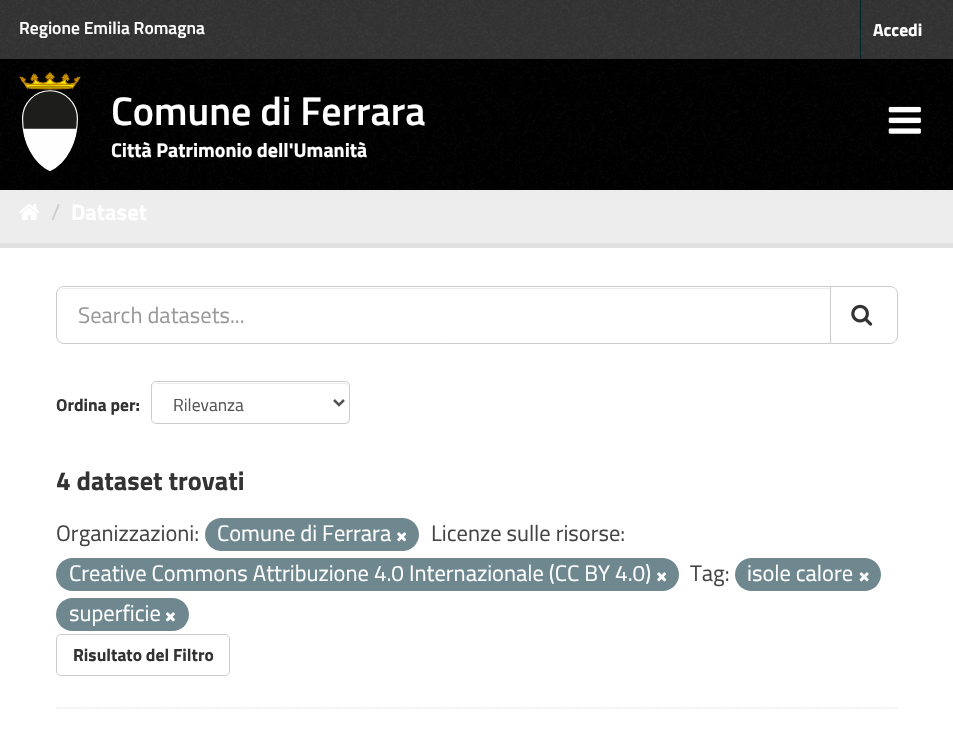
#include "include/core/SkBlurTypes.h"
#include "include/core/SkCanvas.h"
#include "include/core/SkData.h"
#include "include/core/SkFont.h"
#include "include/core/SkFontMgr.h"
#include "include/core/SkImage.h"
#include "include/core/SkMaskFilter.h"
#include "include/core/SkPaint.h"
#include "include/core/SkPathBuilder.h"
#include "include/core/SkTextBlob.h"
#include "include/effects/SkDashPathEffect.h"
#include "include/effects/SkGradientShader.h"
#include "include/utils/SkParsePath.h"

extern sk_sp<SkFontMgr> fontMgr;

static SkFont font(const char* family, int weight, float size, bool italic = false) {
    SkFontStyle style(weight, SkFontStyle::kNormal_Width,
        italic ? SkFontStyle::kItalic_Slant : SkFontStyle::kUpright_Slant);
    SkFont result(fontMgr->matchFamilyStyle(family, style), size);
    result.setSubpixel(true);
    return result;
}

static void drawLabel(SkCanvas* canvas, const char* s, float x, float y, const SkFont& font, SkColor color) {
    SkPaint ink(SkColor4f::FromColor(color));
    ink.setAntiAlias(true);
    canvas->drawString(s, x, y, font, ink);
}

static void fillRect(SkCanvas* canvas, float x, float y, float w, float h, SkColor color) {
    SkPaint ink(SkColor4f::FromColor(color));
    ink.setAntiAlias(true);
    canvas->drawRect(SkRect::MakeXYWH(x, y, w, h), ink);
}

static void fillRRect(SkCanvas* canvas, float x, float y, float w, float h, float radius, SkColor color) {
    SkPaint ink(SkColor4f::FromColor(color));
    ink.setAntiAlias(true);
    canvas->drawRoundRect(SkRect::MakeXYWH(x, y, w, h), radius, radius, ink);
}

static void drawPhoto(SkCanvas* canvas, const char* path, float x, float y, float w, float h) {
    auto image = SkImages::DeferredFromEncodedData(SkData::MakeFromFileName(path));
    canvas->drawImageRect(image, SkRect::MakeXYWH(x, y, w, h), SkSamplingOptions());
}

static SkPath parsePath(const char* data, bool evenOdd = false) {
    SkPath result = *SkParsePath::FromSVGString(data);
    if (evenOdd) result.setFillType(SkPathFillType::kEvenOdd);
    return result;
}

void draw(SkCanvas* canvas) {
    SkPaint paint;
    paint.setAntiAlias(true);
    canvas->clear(0xFF333333);
    drawPhoto(canvas, "assets/img1.png", 0, 0, 953, 58);
    SkFont font1 = font("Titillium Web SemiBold", 600, 17.5f);
    drawLabel(canvas, "Regione Emilia Romagna", 19, 34, font1, 0xFFFFFFFF);
    fillRect(canvas, 860, 0, 1, 59, 0xFF00232E);
    SkFont font2 = font("Titillium Web", 700, 17.5f);
    drawLabel(canvas, "Accedi", 873, 36, font2, 0xFFFFFFFF);
    fillRect(canvas, 0, 59, 953, 131, 0xFF000000);
    drawPhoto(canvas, "assets/img2.png", 0, 59, 953, 131);
    drawPhoto(canvas, "assets/img3.png", 19, 72, 62, 99);
    SkFont font3 = font("Titillium Web SemiBold", 600, 40);
    drawLabel(canvas, "Comune di Ferrara", 111, 125, font3, 0xFFFFFFFF);
    SkFont font4 = font("Titillium Web", 700, 20);
    drawLabel(canvas, "Città Patrimonio dell'Umanità", 111, 157, font4, 0xFFFFFFFF);
    drawPhoto(canvas, "assets/img4.png", 888, 106, 33, 28);
    fillRect(canvas, 0, 190, 953, 53, 0xFFEDEDED);
    drawPhoto(canvas, "assets/img5.png", 19, 204, 20, 16);
    SkFont font5 = font("Titillium Web", 400, 22.5f);
    drawLabel(canvas, "/", 51, 220, font5, 0xFFCCCCCC);
    SkFont font6 = font("Titillium Web", 700, 22.5f);
    drawLabel(canvas, "Dataset", 71, 220, font6, 0xFFFFFFFF);
    paint.setStroke(true);
    paint.setStrokeWidth(5);
    paint.setColor(0xFFE1E1E1);
    canvas->drawRect(SkRect::MakeXYWH(-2.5f, 245.5f, 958, 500), paint);
    fillRect(canvas, 0, 248, 953, 495, 0xFFFFFFFF);
    paint.setStrokeWidth(1.2f);
    paint.setColor(0xFFDDDDDD);
    paint.setPathEffect(SkDashPathEffect::Make({{1.25f, 1.25f}}, 0));
    canvas->drawPath(parsePath("M56 708H897.5"), paint);
    paint.setPathEffect(nullptr);
    paint.setStroke(false);
    paint.setColor(0xFFECECEC);
    canvas->drawPath(parsePath("M64 289H830V288H64C60 288 58 291 58 295C58 292 60 289 64 289Z"), paint);
    paint.setStroke(true);
    paint.setStrokeWidth(1);
    paint.setColor(0xFFCCCCCC);
    canvas->drawPath(parsePath("M64 286.5H830.5V343.5H64C60 343.5 56.5 340 56.5 336V294C56.5 290 60 286.5 64 286.5Z"), paint);
    drawLabel(canvas, "Search datasets...", 78, 323, font5, 0xFF999999);
    paint.setStroke(false);
    paint.setColor(0xFFFFFFFF);
    canvas->drawPath(parsePath("M830.5 286.5H890C894 286.5 897.5 290 897.5 294V336C897.5 340 894 343.5 890 343.5H830.5Z"), paint);
    paint.setStroke(true);
    paint.setColor(0xFFCCCCCC);
    canvas->drawPath(parsePath("M830.5 286.5H890C894 286.5 897.5 290 897.5 294V336C897.5 340 894 343.5 890 343.5H830.5Z"), paint);
    drawPhoto(canvas, "assets/img6.png", 851, 304, 22, 22);
    drawLabel(canvas, "Ordina per:", 56, 411, font2, 0xFF333333);
    paint.setStroke(false);
    paint.setColor(0xFFECECEC);
    canvas->drawPath(parsePath("M156 384H345C347 384 349 385 349 388V387C349 385 347 383 345 383H157C156 383 155 384 154 384Z"), paint);
    paint.setStroke(true);
    paint.setColor(0xFFCCCCCC);
    canvas->drawRoundRect(SkRect::MakeXYWH(151.5f, 381.5f, 198, 42), 4.5f, 4.5f, paint);
    paint.setStrokeWidth(2.5f);
    paint.setColor(0xFF555555);
    canvas->drawPath(parsePath("M334 400L339 405L344 400"), paint);
    SkFont font7 = font("Titillium Web", 400, 17.5f);
    drawLabel(canvas, "Rilevanza", 173, 411, font7, 0xFF555555);
    SkFont font8 = font("Titillium Web", 700, 26.25f);
    drawLabel(canvas, "4 dataset trovati", 56, 490, font8, 0xFF333333);
    drawLabel(canvas, "Organizzazioni:", 56, 541, font5, 0xFF444444);
    fillRRect(canvas, 205, 518, 214, 33, 16.5f, 0xFF6F8890);
    drawLabel(canvas, "Comune di Ferrara", 217, 541, font5, 0xFFFFFFFF);
    drawPhoto(canvas, "assets/img7.png", 397, 532, 10, 10);
    drawLabel(canvas, "Licenze sulle risorse:", 431, 541, font5, 0xFF444444);
    fillRRect(canvas, 56, 558, 623, 33, 16.5f, 0xFF6F8890);
    drawLabel(canvas, "Creative Commons Attribuzione 4.0 Internazionale (CC BY 4.0)", 69, 581, font5, 0xFFFFFFFF);
    drawPhoto(canvas, "assets/img7.png", 657, 572, 10, 10);
    drawLabel(canvas, "Tag:", 690, 581, font5, 0xFF444444);
    fillRRect(canvas, 735, 558, 146, 33, 16.5f, 0xFF6F8890);
    drawLabel(canvas, "isole calore", 747, 581, font5, 0xFFFFFFFF);
    drawPhoto(canvas, "assets/img8.png", 859, 572, 10, 10);
    fillRRect(canvas, 56, 598, 133, 33, 16.5f, 0xFF6F8890);
    drawLabel(canvas, "superficie", 69, 621, font5, 0xFFFFFFFF);
    drawPhoto(canvas, "assets/img9.png", 165, 612, 10, 10);
    paint.setStrokeWidth(1);
    paint.setColor(0xFFCCCCCC);
    canvas->drawRoundRect(SkRect::MakeXYWH(56.5f, 634.5f, 173, 41), 4.5f, 4.5f, paint);
    drawLabel(canvas, "Risultato del Filtro", 73, 661, font2, 0xFF333333);
}
